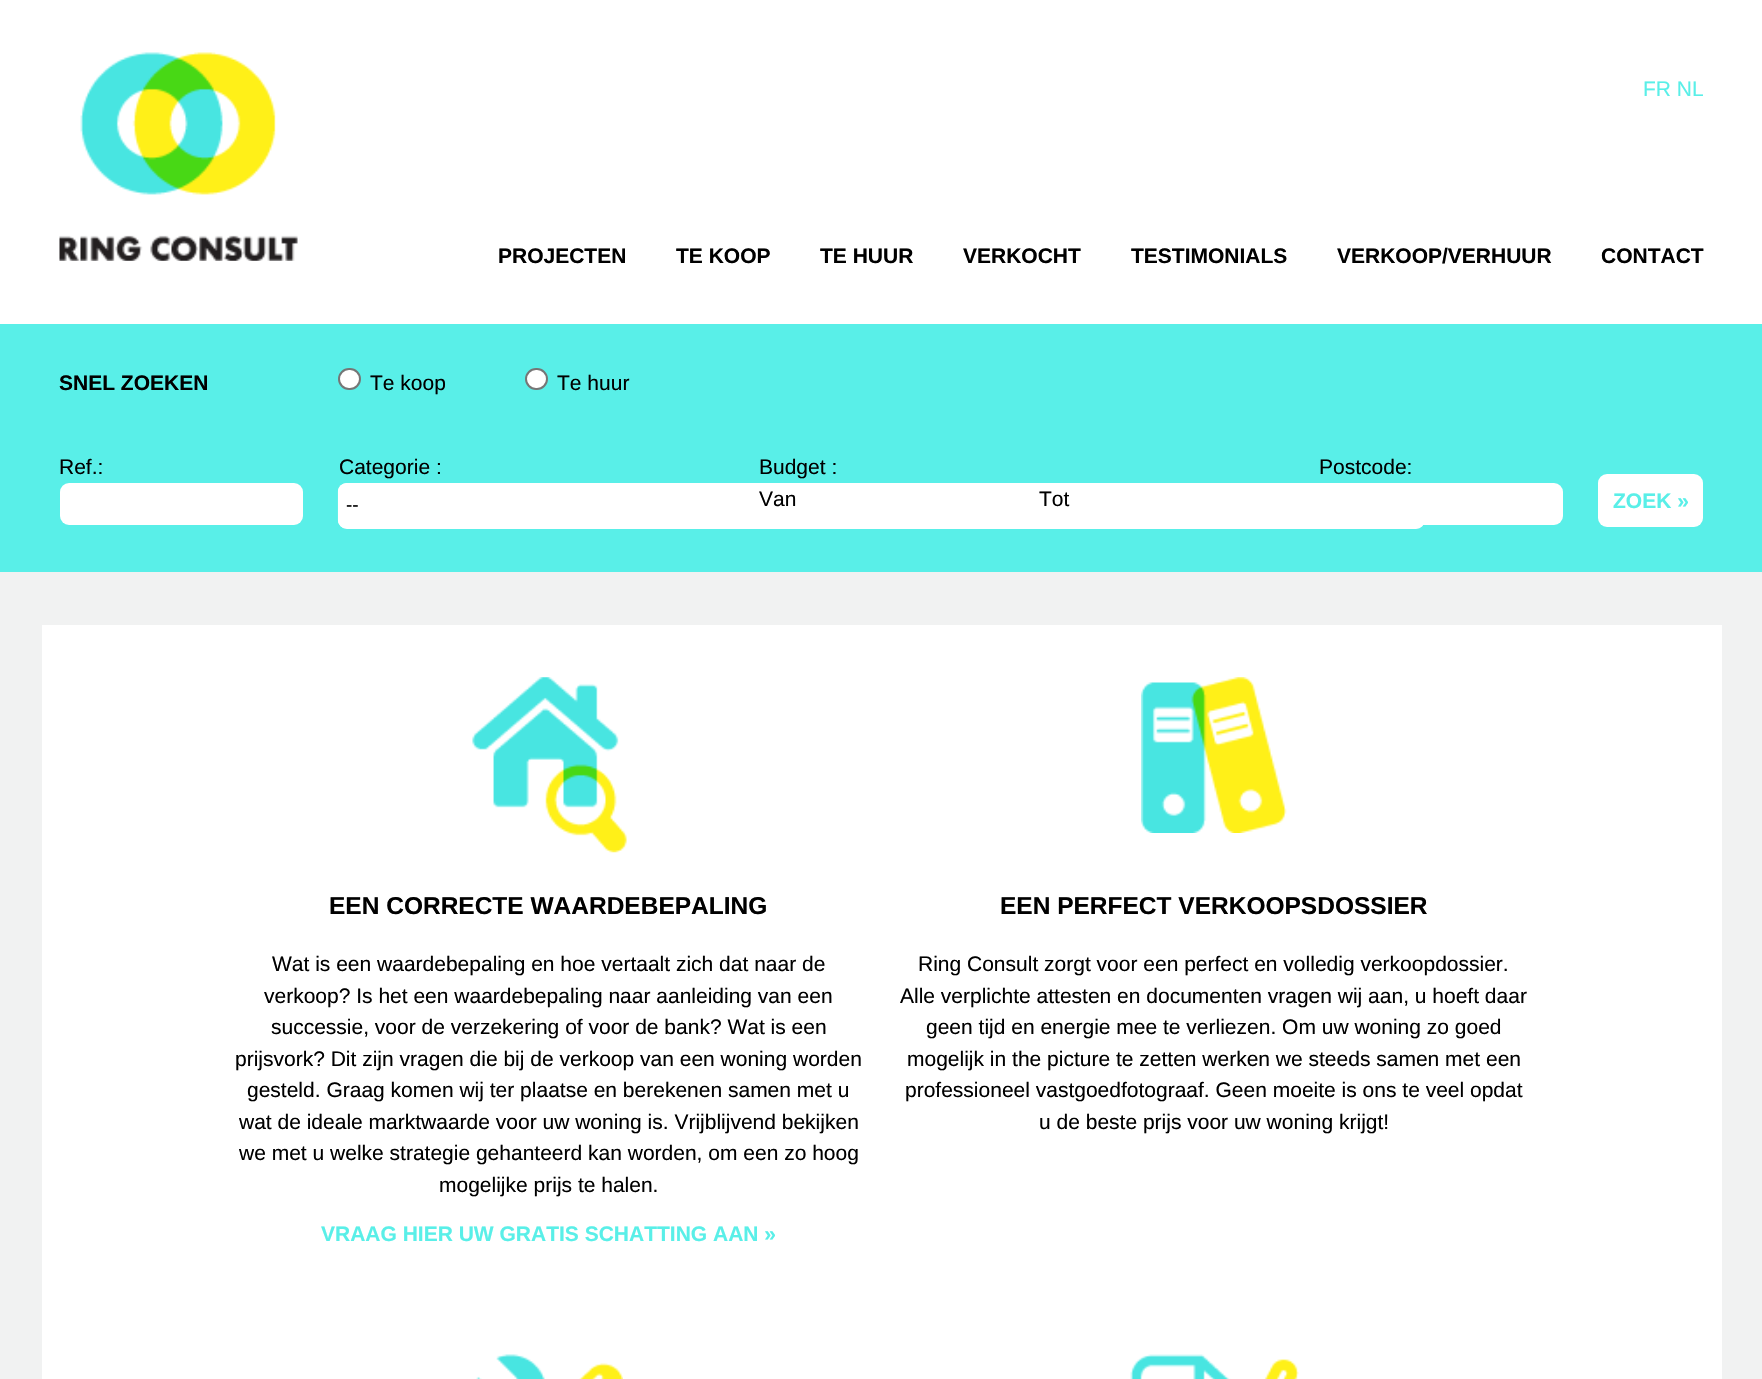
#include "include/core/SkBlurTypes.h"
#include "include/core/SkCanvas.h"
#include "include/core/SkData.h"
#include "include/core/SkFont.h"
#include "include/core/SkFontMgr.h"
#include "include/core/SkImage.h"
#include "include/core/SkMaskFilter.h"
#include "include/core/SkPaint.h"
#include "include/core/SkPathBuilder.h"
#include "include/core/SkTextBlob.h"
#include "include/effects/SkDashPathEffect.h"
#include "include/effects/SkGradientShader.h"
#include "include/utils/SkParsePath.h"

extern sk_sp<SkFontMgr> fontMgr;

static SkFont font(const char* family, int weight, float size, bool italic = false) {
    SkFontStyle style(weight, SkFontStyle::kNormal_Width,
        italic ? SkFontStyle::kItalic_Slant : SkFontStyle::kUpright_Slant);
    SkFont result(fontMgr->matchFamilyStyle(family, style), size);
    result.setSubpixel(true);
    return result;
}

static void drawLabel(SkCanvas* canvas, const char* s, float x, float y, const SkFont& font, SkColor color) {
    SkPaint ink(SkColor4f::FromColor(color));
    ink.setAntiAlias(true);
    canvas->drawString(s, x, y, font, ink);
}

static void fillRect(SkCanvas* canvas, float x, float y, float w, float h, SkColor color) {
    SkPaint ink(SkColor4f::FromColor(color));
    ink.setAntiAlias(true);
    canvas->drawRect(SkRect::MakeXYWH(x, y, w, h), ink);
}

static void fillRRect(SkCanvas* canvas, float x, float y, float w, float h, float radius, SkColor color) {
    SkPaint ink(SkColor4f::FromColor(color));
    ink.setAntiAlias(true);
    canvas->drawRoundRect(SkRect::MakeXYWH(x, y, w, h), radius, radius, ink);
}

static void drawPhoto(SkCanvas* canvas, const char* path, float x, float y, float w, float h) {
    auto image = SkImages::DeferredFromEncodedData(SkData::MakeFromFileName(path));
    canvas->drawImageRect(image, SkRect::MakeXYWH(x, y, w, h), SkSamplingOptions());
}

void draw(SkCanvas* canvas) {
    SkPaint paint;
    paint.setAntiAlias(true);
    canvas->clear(0xFFFFFFFF);
    drawPhoto(canvas, "assets/img1.png", 59, 52, 239, 209);
    SkFont font1 = font("Liberation Sans", 400, 21);
    drawLabel(canvas, "FR NL", 1643, 96, font1, 0xFF59EFE8);
    SkFont font2 = font("Liberation Sans", 700, 21);
    drawLabel(canvas, "PROJECTEN", 498, 263, font2, 0xFF000000);
    drawLabel(canvas, "TE KOOP", 676, 263, font2, 0xFF000000);
    drawLabel(canvas, "TE HUUR", 820, 263, font2, 0xFF000000);
    drawLabel(canvas, "VERKOCHT", 963, 263, font2, 0xFF000000);
    drawLabel(canvas, "TESTIMONIALS", 1131, 263, font2, 0xFF000000);
    drawLabel(canvas, "VERKOOP/VERHUUR", 1337, 263, font2, 0xFF000000);
    drawLabel(canvas, "CONTACT", 1601, 263, font2, 0xFF000000);
    fillRect(canvas, 0, 324, 1762, 248, 0xFF59EFE8);
    paint.setColor(0xFFFFFFFF);
    canvas->drawRoundRect(SkRect::MakeXYWH(339, 369, 21, 20), 10, 10, paint);
    paint.setStroke(true);
    paint.setStrokeWidth(2);
    paint.setColor(0xFF767676);
    canvas->drawRoundRect(SkRect::MakeXYWH(339, 369, 21, 20), 10, 10, paint);
    drawLabel(canvas, "Te koop", 370, 390, font1, 0xFF000000);
    paint.setStroke(false);
    paint.setColor(0xFFFFFFFF);
    canvas->drawRoundRect(SkRect::MakeXYWH(526, 369, 21, 20), 10, 10, paint);
    paint.setStroke(true);
    paint.setColor(0xFF767676);
    canvas->drawRoundRect(SkRect::MakeXYWH(526, 369, 21, 20), 10, 10, paint);
    drawLabel(canvas, "Te huur", 557, 390, font1, 0xFF000000);
    drawLabel(canvas, "Ref.:", 59, 474, font1, 0xFF000000);
    fillRRect(canvas, 60, 483, 243, 42, 9, 0xFFFFFFFF);
    drawLabel(canvas, "Categorie :", 339, 474, font1, 0xFF000000);
    drawPhoto(canvas, "assets/img2.png", 337, 483, 1086, 46);
    paint.setColor(0xFFFFFFFF);
    canvas->drawRoundRect(SkRect::MakeXYWH(339, 484, 1085, 44), 8, 8, paint);
    SkFont font3 = font("Liberation Sans", 400, 19);
    drawLabel(canvas, "--", 346, 511, font3, 0xFF000000);
    drawLabel(canvas, "Budget :", 759, 474, font1, 0xFF000000);
    drawLabel(canvas, "Van", 759, 506, font1, 0xFF000000);
    drawLabel(canvas, "Tot", 1039, 506, font1, 0xFF000000);
    drawLabel(canvas, "Postcode:", 1319, 474, font1, 0xFF000000);
    fillRRect(canvas, 1318, 483, 245, 42, 9, 0xFFFFFFFF);
    fillRRect(canvas, 1598, 474, 105, 53, 9, 0xFFFFFFFF);
    drawLabel(canvas, "ZOEK »", 1613, 508, font2, 0xFF59EFE8);
    drawLabel(canvas, "SNEL ZOEKEN", 59, 390, font2, 0xFF000000);
    fillRect(canvas, 0, 572, 1762, 807, 0xFFF1F2F2);
    fillRect(canvas, 42, 625, 1680, 754, 0xFFFFFFFF);
    drawPhoto(canvas, "assets/img3.png", 472, 677, 155, 176);
    SkFont font4 = font("Liberation Sans", 700, 24.5f);
    drawLabel(canvas, "EEN CORRECTE WAARDEBEPALING", 329, 914, font4, 0xFF000000);
    drawLabel(canvas, "Wat is een waardebepaling en hoe vertaalt zich dat naar de", 272, 971, font1, 0xFF000000);
    drawLabel(canvas, "verkoop? Is het een waardebepaling naar aanleiding van een", 264, 1003, font1, 0xFF000000);
    drawLabel(canvas, "successie, voor de verzekering of voor de bank? Wat is een", 271, 1034, font1, 0xFF000000);
    drawLabel(canvas, "prijsvork? Dit zijn vragen die bij de verkoop van een woning worden", 235, 1066, font1, 0xFF000000);
    drawLabel(canvas, "gesteld. Graag komen wij ter plaatse en berekenen samen met u", 247, 1097, font1, 0xFF000000);
    drawLabel(canvas, "wat de ideale marktwaarde voor uw woning is. Vrijblijvend bekijken", 239, 1129, font1, 0xFF000000);
    drawLabel(canvas, "we met u welke strategie gehanteerd kan worden, om een zo hoog", 239, 1160, font1, 0xFF000000);
    drawLabel(canvas, "mogelijke prijs te halen.", 439, 1192, font1, 0xFF000000);
    drawLabel(canvas, "VRAAG HIER UW GRATIS SCHATTING AAN »", 321, 1241, font2, 0xFF59EFE8);
    drawPhoto(canvas, "assets/img4.png", 1141, 677, 146, 156);
    drawLabel(canvas, "EEN PERFECT VERKOOPSDOSSIER", 1000, 914, font4, 0xFF000000);
    drawLabel(canvas, "Ring Consult zorgt voor een perfect en volledig verkoopdossier.", 918, 971, font1, 0xFF000000);
    drawLabel(canvas, "Alle verplichte attesten en documenten vragen wij aan, u hoeft daar", 900, 1003, font1, 0xFF000000);
    drawLabel(canvas, "geen tijd en energie mee te verliezen. Om uw woning zo goed", 926, 1034, font1, 0xFF000000);
    drawLabel(canvas, "mogelijk in the picture te zetten werken we steeds samen met een", 907, 1066, font1, 0xFF000000);
    drawLabel(canvas, "professioneel vastgoedfotograaf. Geen moeite is ons te veel opdat", 905, 1097, font1, 0xFF000000);
    drawLabel(canvas, "u de beste prijs voor uw woning krijgt!", 1039, 1129, font1, 0xFF000000);
    drawPhoto(canvas, "assets/img5.png", 476, 1354, 147, 25);
    drawPhoto(canvas, "assets/img6.png", 1130, 1354, 169, 25);
}
